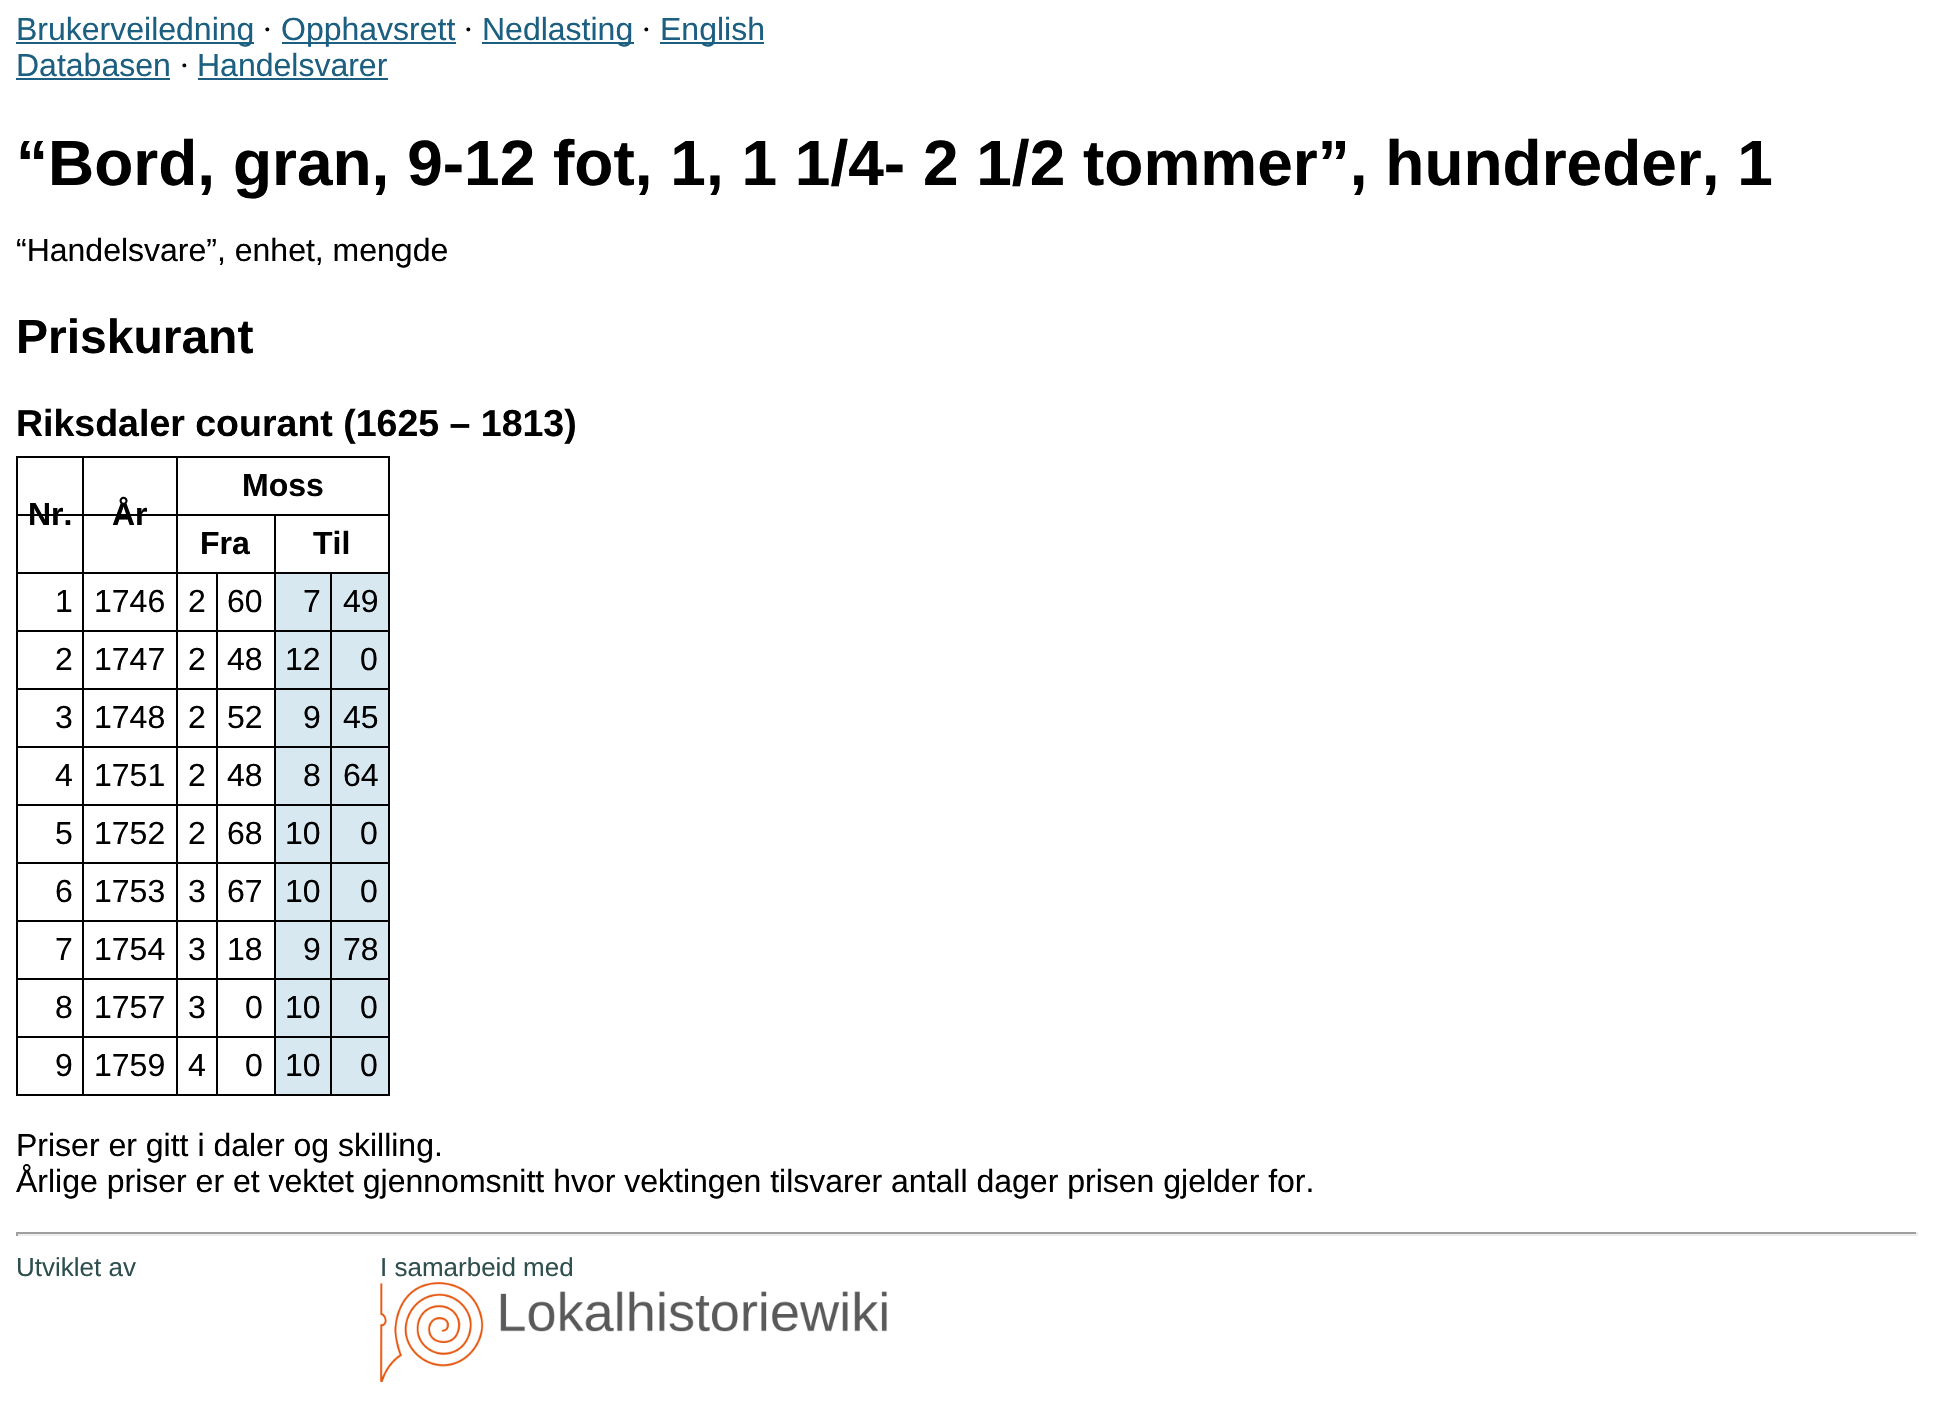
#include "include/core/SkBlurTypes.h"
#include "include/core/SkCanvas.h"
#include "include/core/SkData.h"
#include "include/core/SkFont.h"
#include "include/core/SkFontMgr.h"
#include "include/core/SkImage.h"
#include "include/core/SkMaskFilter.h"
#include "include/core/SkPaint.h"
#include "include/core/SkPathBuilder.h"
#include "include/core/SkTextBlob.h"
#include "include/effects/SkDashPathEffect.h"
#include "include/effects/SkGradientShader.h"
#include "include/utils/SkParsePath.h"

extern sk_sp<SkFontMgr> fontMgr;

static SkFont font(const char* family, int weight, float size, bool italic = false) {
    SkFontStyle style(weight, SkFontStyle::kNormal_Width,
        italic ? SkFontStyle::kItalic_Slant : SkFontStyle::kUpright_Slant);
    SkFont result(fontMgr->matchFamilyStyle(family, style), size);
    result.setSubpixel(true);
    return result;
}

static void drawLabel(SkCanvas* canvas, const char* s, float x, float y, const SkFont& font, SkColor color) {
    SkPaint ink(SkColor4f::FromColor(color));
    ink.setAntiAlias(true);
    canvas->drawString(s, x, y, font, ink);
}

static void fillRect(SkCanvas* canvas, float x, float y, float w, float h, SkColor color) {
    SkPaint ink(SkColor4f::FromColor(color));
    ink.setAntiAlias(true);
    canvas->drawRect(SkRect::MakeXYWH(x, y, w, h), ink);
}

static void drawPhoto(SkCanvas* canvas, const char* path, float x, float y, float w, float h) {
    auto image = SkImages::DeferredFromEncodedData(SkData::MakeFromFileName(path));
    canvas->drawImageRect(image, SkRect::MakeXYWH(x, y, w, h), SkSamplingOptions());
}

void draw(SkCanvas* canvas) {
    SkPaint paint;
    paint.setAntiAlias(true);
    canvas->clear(0xFFFFFFFF);
    fillRect(canvas, 16, 42, 238, 2, 0xFF1C5F81);
    SkFont font1 = font("Liberation Sans", 400, 32);
    drawLabel(canvas, "Brukerveiledning", 16, 40, font1, 0xFF1C5F81);
    SkFont font2 = font("Liberation Serif", 400, 32);
    drawLabel(canvas, "·", 262, 40, font2, 0xFF000000);
    fillRect(canvas, 282, 42, 174, 2, 0xFF1C5F81);
    drawLabel(canvas, "Opphavsrett", 281, 40, font1, 0xFF1C5F81);
    drawLabel(canvas, "·", 463, 40, font2, 0xFF000000);
    fillRect(canvas, 482, 42, 152, 2, 0xFF1C5F81);
    drawLabel(canvas, "Nedlasting", 482, 40, font1, 0xFF1C5F81);
    drawLabel(canvas, "·", 641, 40, font2, 0xFF000000);
    fillRect(canvas, 660, 42, 104, 2, 0xFF1C5F81);
    drawLabel(canvas, "English", 660, 40, font1, 0xFF1C5F81);
    drawLabel(canvas, "Databasen", 16, 76, font1, 0xFF1C5F81);
    fillRect(canvas, 16, 78, 154, 2, 0xFF1C5F81);
    drawLabel(canvas, "·", 179, 76, font2, 0xFF000000);
    drawLabel(canvas, "Handelsvarer", 197, 76, font1, 0xFF1C5F81);
    fillRect(canvas, 198, 78, 190, 2, 0xFF1C5F81);
    SkFont font3 = font("Liberation Sans", 700, 64);
    drawLabel(canvas, "“Bord, gran, 9-12 fot, 1, 1 1/4- 2 1/2 tommer”, hundreder, 1", 16, 185, font3, 0xFF000000);
    drawLabel(canvas, "“Handelsvare”, enhet, mengde", 16, 261, font1, 0xFF000000);
    SkFont font4 = font("Liberation Sans", 700, 48);
    drawLabel(canvas, "Priskurant", 16, 353, font4, 0xFF000000);
    SkFont font5 = font("Liberation Sans", 700, 37.5f);
    drawLabel(canvas, "Riksdaler courant (1625 – 1813)", 16, 436, font5, 0xFF000000);
    fillRect(canvas, 16, 456, 374, 2, 0xFF000000);
    fillRect(canvas, 388, 456, 2, 640, 0xFF000000);
    fillRect(canvas, 16, 1094, 374, 2, 0xFF000000);
    fillRect(canvas, 16, 456, 2, 640, 0xFF000000);
    SkFont font6 = font("Liberation Sans", 700, 32);
    drawLabel(canvas, "Moss", 242, 496, font6, 0xFF000000);
    fillRect(canvas, 16, 514, 374, 2, 0xFF000000);
    drawLabel(canvas, "Nr.", 28, 525, font6, 0xFF000000);
    drawLabel(canvas, "År", 112, 525, font6, 0xFF000000);
    drawLabel(canvas, "Fra", 200, 554, font6, 0xFF000000);
    drawLabel(canvas, "Til", 313, 554, font6, 0xFF000000);
    fillRect(canvas, 16, 572, 374, 2, 0xFF000000);
    drawLabel(canvas, "1", 55, 612, font1, 0xFF000000);
    drawLabel(canvas, "1746", 94, 612, font1, 0xFF000000);
    drawLabel(canvas, "2", 188, 612, font1, 0xFF000000);
    drawLabel(canvas, "60", 227, 612, font1, 0xFF000000);
    fillRect(canvas, 276, 574, 54, 56, 0xFFD8E8F0);
    drawLabel(canvas, "7", 303, 612, font1, 0xFF000000);
    fillRect(canvas, 332, 574, 56, 56, 0xFFD8E8F0);
    drawLabel(canvas, "49", 343, 612, font1, 0xFF000000);
    fillRect(canvas, 16, 630, 374, 2, 0xFF000000);
    drawLabel(canvas, "2", 55, 670, font1, 0xFF000000);
    drawLabel(canvas, "1747", 94, 670, font1, 0xFF000000);
    drawLabel(canvas, "2", 188, 670, font1, 0xFF000000);
    drawLabel(canvas, "48", 227, 670, font1, 0xFF000000);
    fillRect(canvas, 276, 632, 54, 56, 0xFFD8E8F0);
    drawLabel(canvas, "12", 285, 670, font1, 0xFF000000);
    fillRect(canvas, 332, 632, 56, 56, 0xFFD8E8F0);
    drawLabel(canvas, "0", 360, 670, font1, 0xFF000000);
    fillRect(canvas, 16, 688, 374, 2, 0xFF000000);
    drawLabel(canvas, "3", 55, 728, font1, 0xFF000000);
    drawLabel(canvas, "1748", 94, 728, font1, 0xFF000000);
    drawLabel(canvas, "2", 188, 728, font1, 0xFF000000);
    drawLabel(canvas, "52", 227, 728, font1, 0xFF000000);
    fillRect(canvas, 276, 690, 54, 56, 0xFFD8E8F0);
    drawLabel(canvas, "9", 303, 728, font1, 0xFF000000);
    fillRect(canvas, 332, 690, 56, 56, 0xFFD8E8F0);
    drawLabel(canvas, "45", 343, 728, font1, 0xFF000000);
    fillRect(canvas, 16, 746, 374, 2, 0xFF000000);
    drawLabel(canvas, "4", 55, 786, font1, 0xFF000000);
    drawLabel(canvas, "1751", 94, 786, font1, 0xFF000000);
    drawLabel(canvas, "2", 188, 786, font1, 0xFF000000);
    drawLabel(canvas, "48", 227, 786, font1, 0xFF000000);
    fillRect(canvas, 276, 748, 54, 56, 0xFFD8E8F0);
    drawLabel(canvas, "8", 303, 786, font1, 0xFF000000);
    fillRect(canvas, 332, 748, 56, 56, 0xFFD8E8F0);
    drawLabel(canvas, "64", 343, 786, font1, 0xFF000000);
    fillRect(canvas, 16, 804, 374, 2, 0xFF000000);
    drawLabel(canvas, "5", 55, 844, font1, 0xFF000000);
    drawLabel(canvas, "1752", 94, 844, font1, 0xFF000000);
    drawLabel(canvas, "2", 188, 844, font1, 0xFF000000);
    drawLabel(canvas, "68", 227, 844, font1, 0xFF000000);
    fillRect(canvas, 276, 806, 54, 56, 0xFFD8E8F0);
    drawLabel(canvas, "10", 285, 844, font1, 0xFF000000);
    fillRect(canvas, 332, 806, 56, 56, 0xFFD8E8F0);
    drawLabel(canvas, "0", 360, 844, font1, 0xFF000000);
    fillRect(canvas, 16, 862, 374, 2, 0xFF000000);
    drawLabel(canvas, "6", 55, 902, font1, 0xFF000000);
    drawLabel(canvas, "1753", 94, 902, font1, 0xFF000000);
    drawLabel(canvas, "3", 188, 902, font1, 0xFF000000);
    drawLabel(canvas, "67", 227, 902, font1, 0xFF000000);
    fillRect(canvas, 276, 864, 54, 56, 0xFFD8E8F0);
    drawLabel(canvas, "10", 285, 902, font1, 0xFF000000);
    fillRect(canvas, 332, 864, 56, 56, 0xFFD8E8F0);
    drawLabel(canvas, "0", 360, 902, font1, 0xFF000000);
    fillRect(canvas, 16, 920, 374, 2, 0xFF000000);
    drawLabel(canvas, "7", 55, 960, font1, 0xFF000000);
    drawLabel(canvas, "1754", 94, 960, font1, 0xFF000000);
    drawLabel(canvas, "3", 188, 960, font1, 0xFF000000);
    drawLabel(canvas, "18", 227, 960, font1, 0xFF000000);
    fillRect(canvas, 276, 922, 54, 56, 0xFFD8E8F0);
    drawLabel(canvas, "9", 303, 960, font1, 0xFF000000);
    fillRect(canvas, 332, 922, 56, 56, 0xFFD8E8F0);
    drawLabel(canvas, "78", 343, 960, font1, 0xFF000000);
    fillRect(canvas, 16, 978, 374, 2, 0xFF000000);
    drawLabel(canvas, "8", 55, 1018, font1, 0xFF000000);
    drawLabel(canvas, "1757", 94, 1018, font1, 0xFF000000);
    drawLabel(canvas, "3", 188, 1018, font1, 0xFF000000);
    drawLabel(canvas, "0", 245, 1018, font1, 0xFF000000);
    fillRect(canvas, 276, 980, 54, 56, 0xFFD8E8F0);
    drawLabel(canvas, "10", 285, 1018, font1, 0xFF000000);
    fillRect(canvas, 332, 980, 56, 56, 0xFFD8E8F0);
    drawLabel(canvas, "0", 360, 1018, font1, 0xFF000000);
    fillRect(canvas, 16, 1036, 374, 2, 0xFF000000);
    drawLabel(canvas, "9", 55, 1076, font1, 0xFF000000);
    fillRect(canvas, 82, 456, 2, 640, 0xFF000000);
    drawLabel(canvas, "1759", 94, 1076, font1, 0xFF000000);
    fillRect(canvas, 176, 456, 2, 640, 0xFF000000);
    drawLabel(canvas, "4", 188, 1076, font1, 0xFF000000);
    fillRect(canvas, 216, 572, 2, 524, 0xFF000000);
    drawLabel(canvas, "0", 245, 1076, font1, 0xFF000000);
    fillRect(canvas, 276, 1038, 54, 56, 0xFFD8E8F0);
    fillRect(canvas, 274, 514, 2, 582, 0xFF000000);
    drawLabel(canvas, "10", 285, 1076, font1, 0xFF000000);
    fillRect(canvas, 332, 1038, 56, 56, 0xFFD8E8F0);
    fillRect(canvas, 330, 572, 2, 524, 0xFF000000);
    drawLabel(canvas, "0", 360, 1076, font1, 0xFF000000);
    drawLabel(canvas, "Priser er gitt i daler og skilling.", 16, 1156, font1, 0xFF000000);
    drawLabel(canvas, "Årlige priser er et vektet gjennomsnitt hvor vektingen tilsvarer antall dager prisen gjelder for.", 16, 1192, font1, 0xFF000000);
    fillRect(canvas, 16, 1232, 1902, 2, 0xFF9F9F9F);
    fillRect(canvas, 1916, 1232, 2, 4, 0xFFEEEEEE);
    fillRect(canvas, 16, 1234, 1902, 2, 0xFFEEEEEE);
    fillRect(canvas, 16, 1232, 2, 4, 0xFF9F9F9F);
    SkFont font7 = font("Liberation Sans", 400, 26);
    drawLabel(canvas, "Utviklet av", 16, 1276, font7, 0xFF2F4F4F);
    drawLabel(canvas, "I samarbeid med", 380, 1276, font7, 0xFF2F4F4F);
    drawPhoto(canvas, "assets/img1.png", 380, 1282, 508, 100);
}
